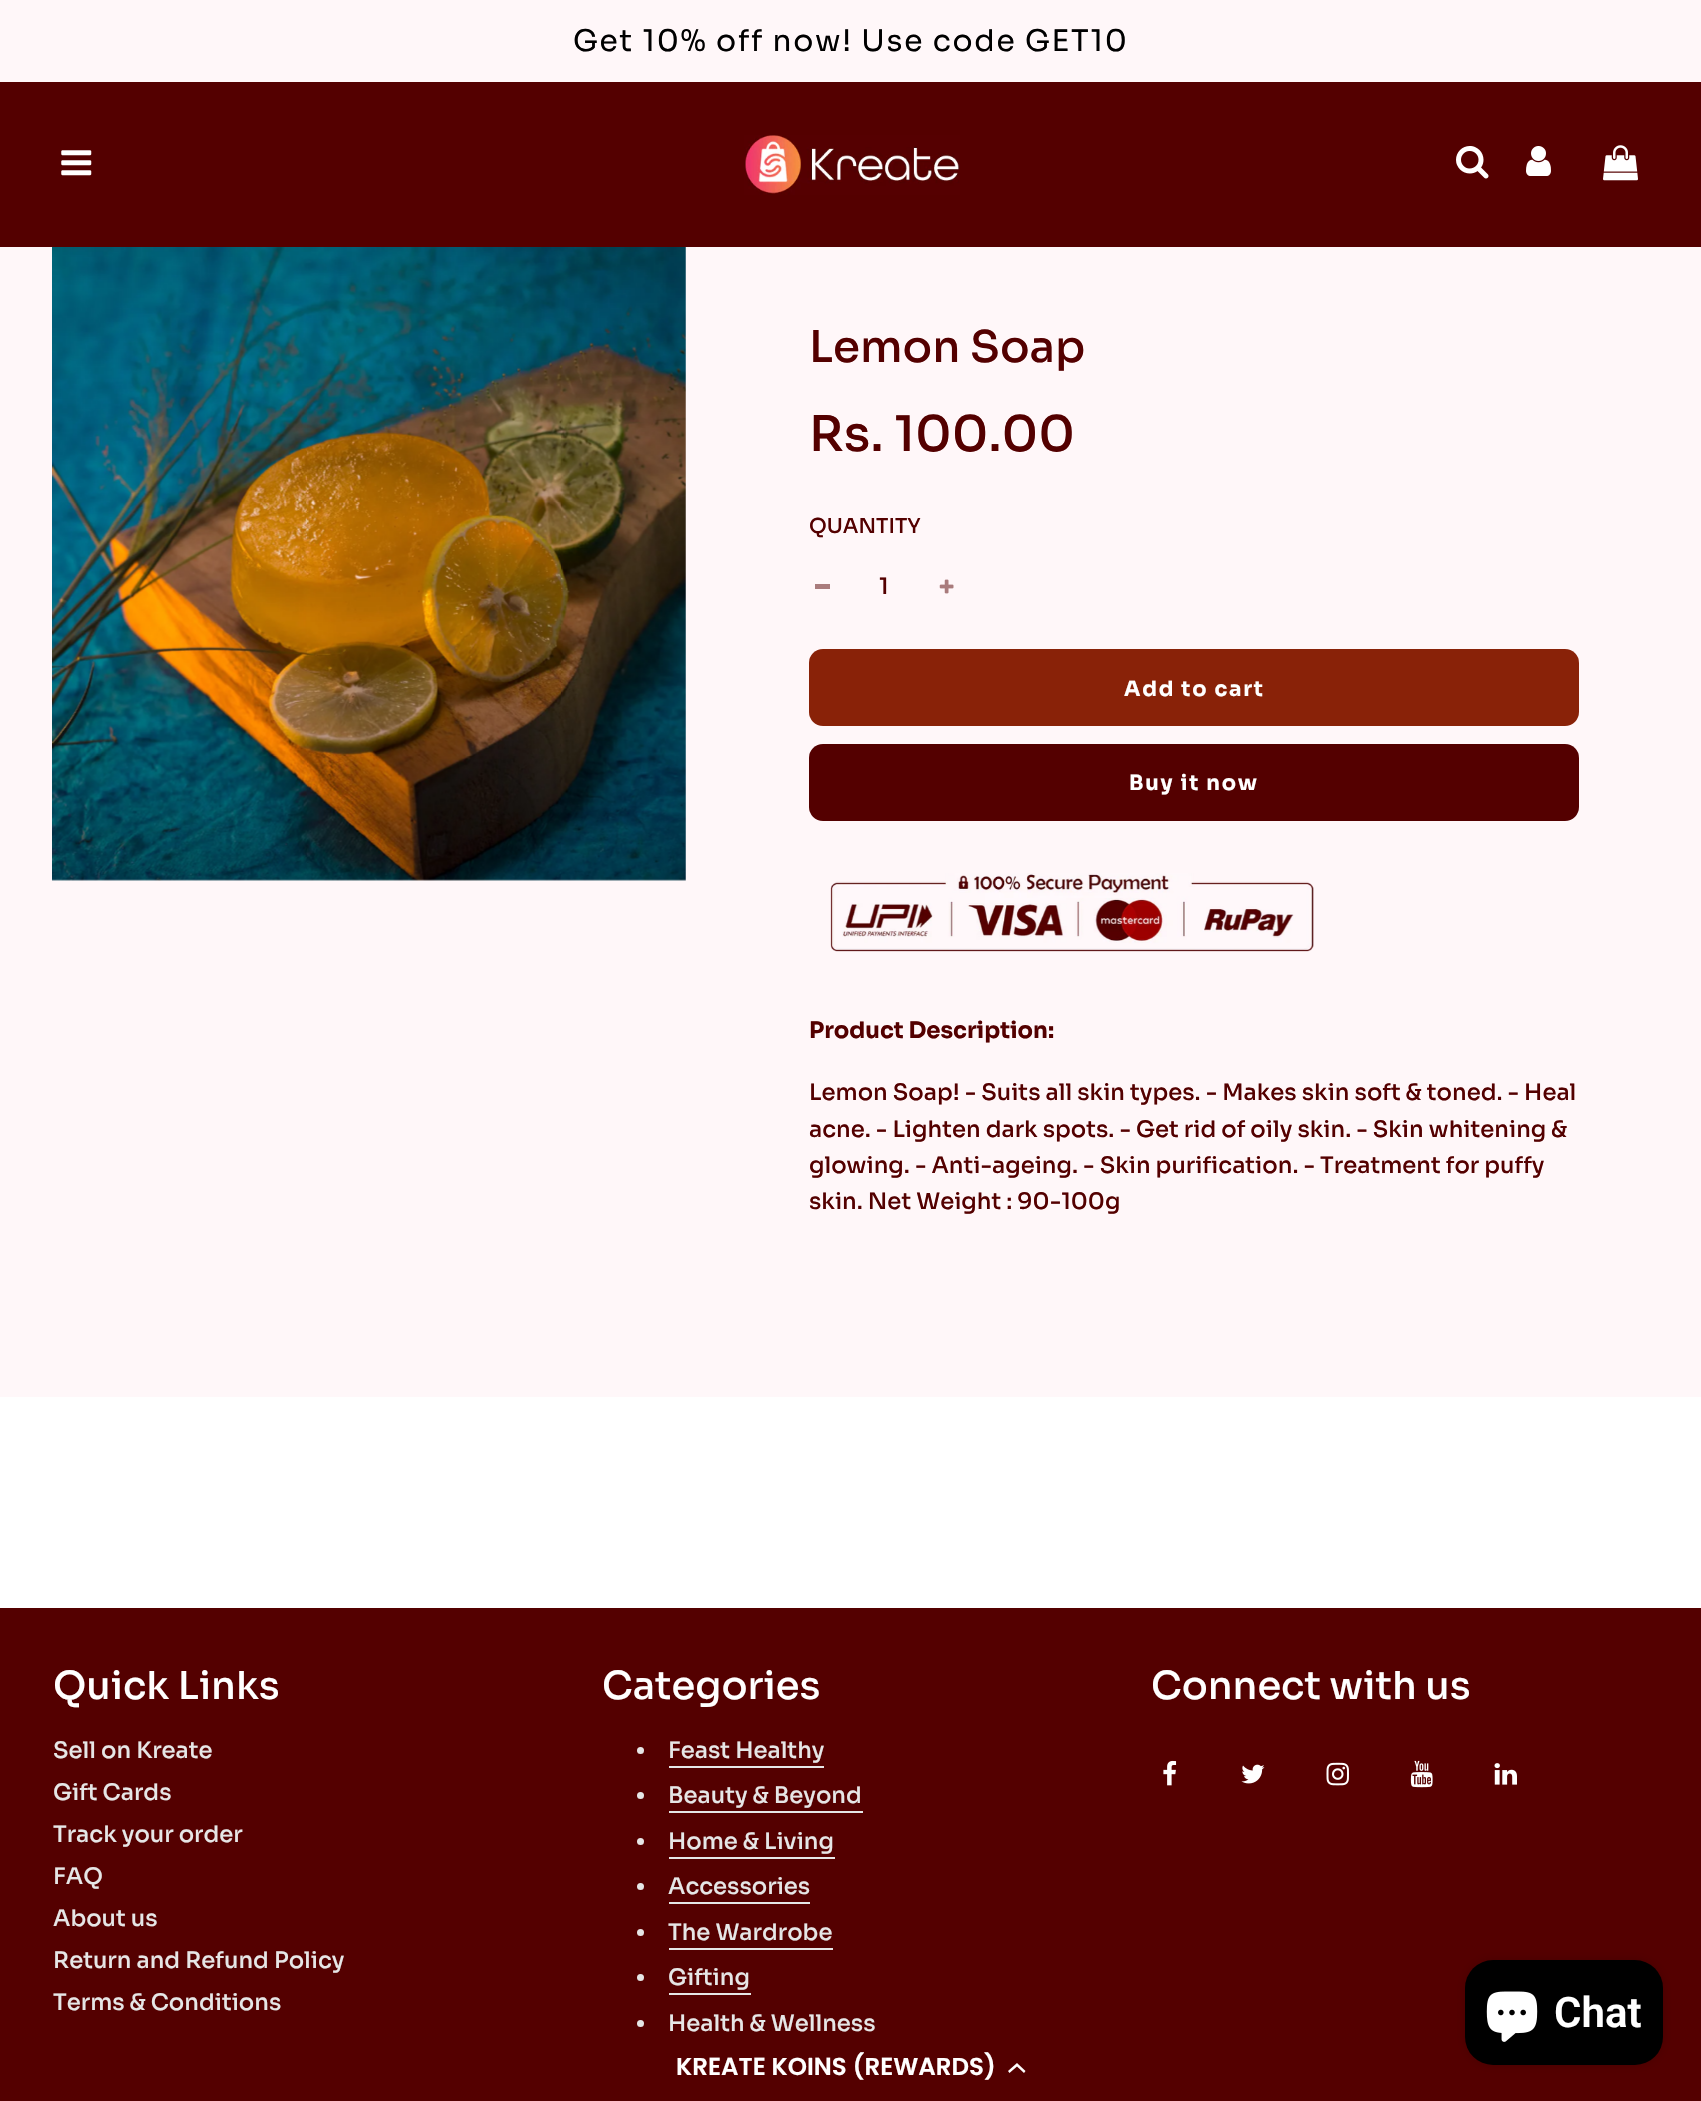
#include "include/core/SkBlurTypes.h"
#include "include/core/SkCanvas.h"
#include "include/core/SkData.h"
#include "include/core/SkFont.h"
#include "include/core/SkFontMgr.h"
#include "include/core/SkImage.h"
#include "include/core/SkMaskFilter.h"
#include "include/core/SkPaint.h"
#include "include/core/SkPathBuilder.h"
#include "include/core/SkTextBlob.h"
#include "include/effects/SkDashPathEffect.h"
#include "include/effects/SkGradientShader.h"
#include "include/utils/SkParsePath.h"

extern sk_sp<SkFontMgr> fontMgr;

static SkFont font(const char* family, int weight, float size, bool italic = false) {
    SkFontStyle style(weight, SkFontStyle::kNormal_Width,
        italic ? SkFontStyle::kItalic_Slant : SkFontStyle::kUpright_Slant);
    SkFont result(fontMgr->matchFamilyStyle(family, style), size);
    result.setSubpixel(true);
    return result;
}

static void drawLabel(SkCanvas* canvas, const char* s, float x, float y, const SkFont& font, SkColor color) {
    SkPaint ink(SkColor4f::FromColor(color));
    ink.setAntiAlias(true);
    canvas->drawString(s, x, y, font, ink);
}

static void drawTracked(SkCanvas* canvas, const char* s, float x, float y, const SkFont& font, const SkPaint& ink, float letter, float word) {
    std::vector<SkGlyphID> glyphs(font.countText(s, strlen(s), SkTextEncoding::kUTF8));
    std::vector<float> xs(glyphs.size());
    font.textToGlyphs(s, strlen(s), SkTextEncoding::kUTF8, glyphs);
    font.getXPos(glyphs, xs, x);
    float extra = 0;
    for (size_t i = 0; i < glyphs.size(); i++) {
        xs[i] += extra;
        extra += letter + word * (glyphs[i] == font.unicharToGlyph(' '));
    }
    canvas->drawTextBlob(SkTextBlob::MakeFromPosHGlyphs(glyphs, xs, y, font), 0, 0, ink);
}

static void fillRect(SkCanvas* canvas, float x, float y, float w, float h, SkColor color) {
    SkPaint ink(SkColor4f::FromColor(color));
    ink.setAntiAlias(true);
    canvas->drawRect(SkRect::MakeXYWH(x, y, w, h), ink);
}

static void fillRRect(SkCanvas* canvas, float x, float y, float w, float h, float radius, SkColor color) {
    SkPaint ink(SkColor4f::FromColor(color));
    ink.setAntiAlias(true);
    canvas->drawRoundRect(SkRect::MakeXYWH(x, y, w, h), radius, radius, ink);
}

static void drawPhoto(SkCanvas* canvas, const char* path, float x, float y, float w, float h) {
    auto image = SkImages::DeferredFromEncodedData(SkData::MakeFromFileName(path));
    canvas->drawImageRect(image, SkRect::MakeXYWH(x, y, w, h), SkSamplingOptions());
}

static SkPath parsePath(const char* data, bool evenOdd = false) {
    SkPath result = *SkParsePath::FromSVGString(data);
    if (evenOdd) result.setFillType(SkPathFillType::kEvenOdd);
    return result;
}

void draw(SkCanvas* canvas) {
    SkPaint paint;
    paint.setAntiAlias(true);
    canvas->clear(0xFFFFF7F9);
    SkFont font1 = font("Sora", 400, 29.75f);
    paint.setColor(0xFF000000);
    drawTracked(canvas, "Get 10% off now! Use code GET10", 573, 51, font1, paint, 1.75f, 0);
    fillRect(canvas, 0, 82, 1701, 165, 0xFF540000);
    drawPhoto(canvas, "assets/img1.png", 61, 150, 31, 26);
    drawPhoto(canvas, "assets/img2.png", 744, 135, 216, 60);
    drawPhoto(canvas, "assets/img3.png", 1456, 146, 33, 33);
    drawPhoto(canvas, "assets/img4.png", 1526, 146, 25, 30);
    drawPhoto(canvas, "assets/img5.png", 1603, 145, 35, 36);
    drawPhoto(canvas, "assets/img6.png", 52, 247, 634, 634);
    SkFont font2 = font("Sora", 500, 43.75f);
    drawLabel(canvas, "Lemon Soap", 809, 362, font2, 0xFF540000);
    SkFont font3 = font("Sora", 500, 49);
    drawLabel(canvas, "Rs. 100.00", 809, 451, font3, 0xFF540000);
    SkFont font4 = font("Sora", 500, 20.5f);
    drawLabel(canvas, "QUANTITY", 809, 533, font4, 0xFF540000);
    fillRect(canvas, 815, 584, 15, 5, 0xFFAA7C7D);
    SkFont font5 = font("Sora", 500, 22.75f);
    drawLabel(canvas, "1", 879, 594, font5, 0xFF540000);
    drawPhoto(canvas, "assets/img7.png", 939, 579, 15, 15);
    fillRRect(canvas, 809, 649, 770, 77, 14, 0xFF892208);
    SkFont font6 = font("Sora", 700, 21);
    paint.setColor(0xFFFFFFFF);
    drawTracked(canvas, "Add to cart", 1124, 696, font6, paint, 1.75f, 0);
    fillRRect(canvas, 809, 744, 770, 77, 14, 0xFF540000);
    drawTracked(canvas, "Buy it now", 1129, 790, font6, paint, 1.75f, 0);
    drawPhoto(canvas, "assets/img8.png", 830, 873, 484, 79);
    SkFont font7 = font("Sora", 700, 22.75f);
    drawLabel(canvas, "Product Description:", 809, 1038, font7, 0xFF540000);
    drawLabel(canvas, "Lemon Soap! - Suits all skin types. - Makes skin soft & toned. - Heal", 809, 1100, font5, 0xFF540000);
    drawLabel(canvas, "acne. - Lighten dark spots. - Get rid of oily skin. - Skin whitening &", 809, 1137, font5, 0xFF540000);
    drawLabel(canvas, "glowing. - Anti-ageing. - Skin purification. - Treatment for puffy", 809, 1173, font5, 0xFF540000);
    drawLabel(canvas, "skin. Net Weight : 90-100g", 809, 1209, font5, 0xFF540000);
    fillRect(canvas, 0, 1397, 1701, 211, 0xFFFFFFFF);
    fillRect(canvas, 0, 1608, 1701, 493, 0xFF540000);
    SkFont font8 = font("Sora", 500, 38.5f);
    drawLabel(canvas, "Quick Links", 53, 1699, font8, 0xFFFFFFFF);
    drawLabel(canvas, "Sell on Kreate", 53, 1758, font5, 0xFFE6E6E6);
    drawLabel(canvas, "Gift Cards", 53, 1800, font5, 0xFFE6E6E6);
    drawLabel(canvas, "Track your order", 53, 1842, font5, 0xFFE6E6E6);
    drawLabel(canvas, "FAQ", 53, 1884, font5, 0xFFE6E6E6);
    drawLabel(canvas, "About us", 53, 1926, font5, 0xFFE6E6E6);
    drawLabel(canvas, "Return and Refund Policy", 53, 1968, font5, 0xFFE6E6E6);
    drawLabel(canvas, "Terms & Conditions", 53, 2010, font5, 0xFFE6E6E6);
    drawLabel(canvas, "Categories", 602, 1699, font8, 0xFFFFFFFF);
    paint.setColor(0xFFE6E6E6);
    canvas->drawCircle(640.5f, 1750.5f, 3.5f, paint);
    drawLabel(canvas, "Feast Healthy", 668, 1758, font5, 0xFFE6E6E6);
    fillRect(canvas, 669, 1766, 155, 2, 0xFFE6E6E6);
    canvas->drawCircle(640.5f, 1795.5f, 3.5f, paint);
    drawLabel(canvas, "Beauty & Beyond", 668, 1803, font5, 0xFFE6E6E6);
    fillRect(canvas, 669, 1811, 194, 2, 0xFFE6E6E6);
    canvas->drawCircle(640.5f, 1841.5f, 3.5f, paint);
    drawLabel(canvas, "Home & Living", 668, 1849, font5, 0xFFE6E6E6);
    fillRect(canvas, 669, 1857, 166, 2, 0xFFE6E6E6);
    canvas->drawCircle(640.5f, 1886.5f, 3.5f, paint);
    drawLabel(canvas, "Accessories", 668, 1894, font5, 0xFFE6E6E6);
    fillRect(canvas, 669, 1902, 141, 2, 0xFFE6E6E6);
    canvas->drawCircle(640.5f, 1932.5f, 3.5f, paint);
    drawLabel(canvas, "The Wardrobe", 668, 1940, font5, 0xFFE6E6E6);
    fillRect(canvas, 669, 1948, 164, 2, 0xFFE6E6E6);
    canvas->drawCircle(640.5f, 1977.5f, 3.5f, paint);
    drawLabel(canvas, "Gifting", 668, 1985, font5, 0xFFE6E6E6);
    fillRect(canvas, 669, 1993, 82, 2, 0xFFE6E6E6);
    canvas->drawCircle(640.5f, 2023.5f, 3.5f, paint);
    drawLabel(canvas, "Health & Wellness", 668, 2031, font5, 0xFFE6E6E6);
    drawLabel(canvas, "Connect with us", 1151, 1699, font8, 0xFFFFFFFF);
    drawPhoto(canvas, "assets/img9.png", 1163, 1760, 14, 26);
    drawPhoto(canvas, "assets/img10.png", 1241, 1764, 24, 20);
    drawPhoto(canvas, "assets/img11.png", 1326, 1762, 23, 24);
    drawPhoto(canvas, "assets/img12.png", 1410, 1760, 23, 28);
    drawPhoto(canvas, "assets/img13.png", 1494, 1763, 23, 22);
    paint.setColor(0x26000000);
    paint.setMaskFilter(SkMaskFilter::MakeBlur(kNormal_SkBlurStyle, 4.5f));
    canvas->drawRoundRect(SkRect::MakeXYWH(1465, 1960, 198, 105), 28, 28, paint);
    paint.setMaskFilter(nullptr);
    fillRRect(canvas, 1465, 1960, 198, 105, 28, 0xFF000000);
    drawPhoto(canvas, "assets/img14.png", 1486, 1991, 52, 51);
    SkFont font9 = font("Roboto", 600, 42);
    drawLabel(canvas, "Chat", 1554, 2027, font9, 0xFFFFFFFF);
    SkFont font10 = font("Poppins", 600, 24.5f);
    drawLabel(canvas, "KREATE KOINS (REWARDS)", 676, 2075, font10, 0xFFFFFFFF);
    paint.setColor(0xFFFFFFFF);
    canvas->drawPath(parsePath("M1017 2066.5L1009.5 2073L1008 2071L1017 2063L1025.5 2071L1024 2073Z"), paint);
}
